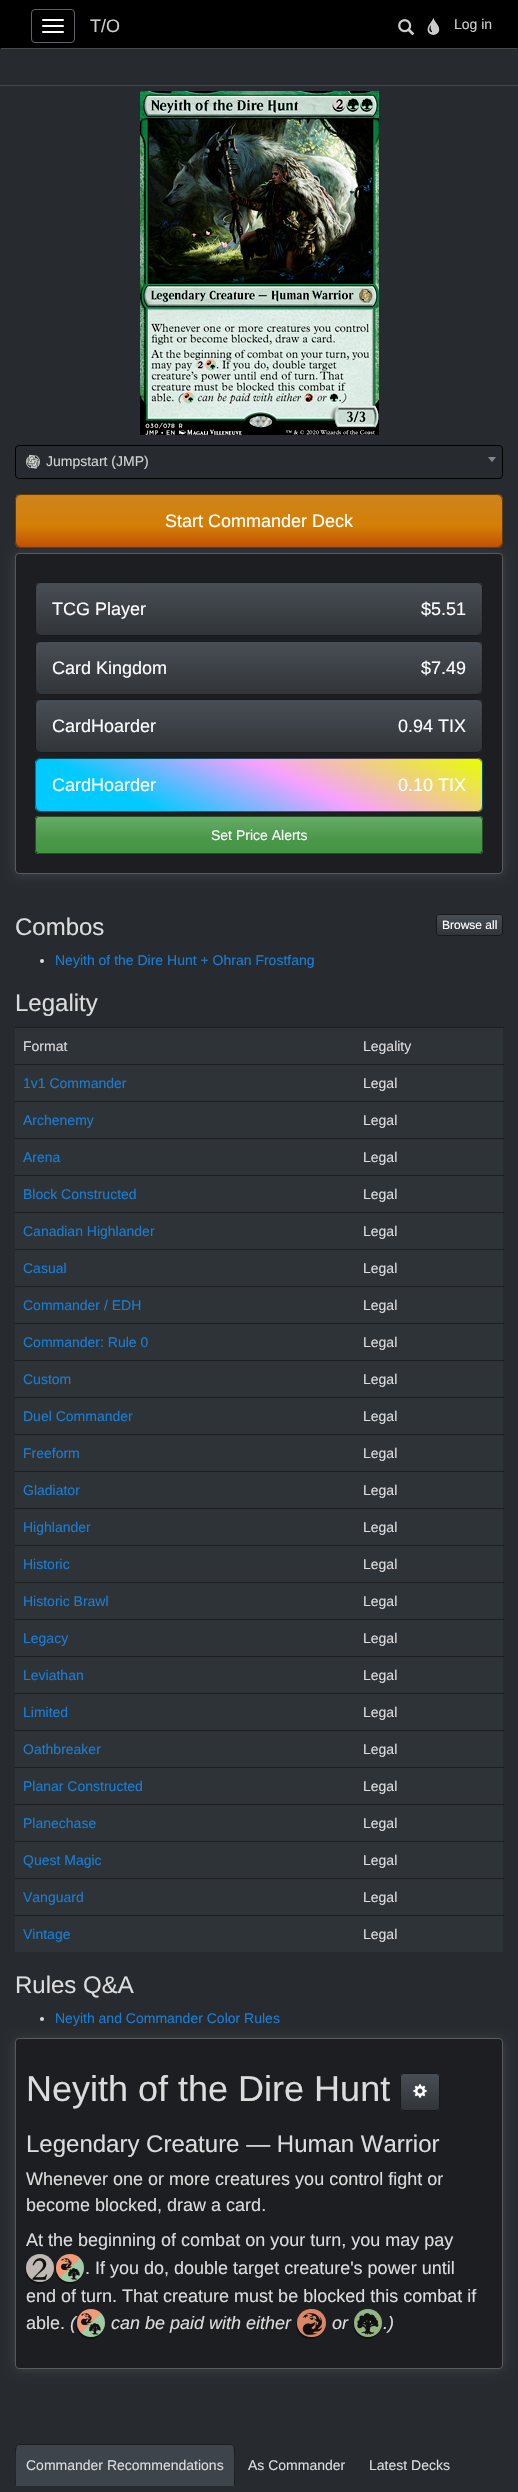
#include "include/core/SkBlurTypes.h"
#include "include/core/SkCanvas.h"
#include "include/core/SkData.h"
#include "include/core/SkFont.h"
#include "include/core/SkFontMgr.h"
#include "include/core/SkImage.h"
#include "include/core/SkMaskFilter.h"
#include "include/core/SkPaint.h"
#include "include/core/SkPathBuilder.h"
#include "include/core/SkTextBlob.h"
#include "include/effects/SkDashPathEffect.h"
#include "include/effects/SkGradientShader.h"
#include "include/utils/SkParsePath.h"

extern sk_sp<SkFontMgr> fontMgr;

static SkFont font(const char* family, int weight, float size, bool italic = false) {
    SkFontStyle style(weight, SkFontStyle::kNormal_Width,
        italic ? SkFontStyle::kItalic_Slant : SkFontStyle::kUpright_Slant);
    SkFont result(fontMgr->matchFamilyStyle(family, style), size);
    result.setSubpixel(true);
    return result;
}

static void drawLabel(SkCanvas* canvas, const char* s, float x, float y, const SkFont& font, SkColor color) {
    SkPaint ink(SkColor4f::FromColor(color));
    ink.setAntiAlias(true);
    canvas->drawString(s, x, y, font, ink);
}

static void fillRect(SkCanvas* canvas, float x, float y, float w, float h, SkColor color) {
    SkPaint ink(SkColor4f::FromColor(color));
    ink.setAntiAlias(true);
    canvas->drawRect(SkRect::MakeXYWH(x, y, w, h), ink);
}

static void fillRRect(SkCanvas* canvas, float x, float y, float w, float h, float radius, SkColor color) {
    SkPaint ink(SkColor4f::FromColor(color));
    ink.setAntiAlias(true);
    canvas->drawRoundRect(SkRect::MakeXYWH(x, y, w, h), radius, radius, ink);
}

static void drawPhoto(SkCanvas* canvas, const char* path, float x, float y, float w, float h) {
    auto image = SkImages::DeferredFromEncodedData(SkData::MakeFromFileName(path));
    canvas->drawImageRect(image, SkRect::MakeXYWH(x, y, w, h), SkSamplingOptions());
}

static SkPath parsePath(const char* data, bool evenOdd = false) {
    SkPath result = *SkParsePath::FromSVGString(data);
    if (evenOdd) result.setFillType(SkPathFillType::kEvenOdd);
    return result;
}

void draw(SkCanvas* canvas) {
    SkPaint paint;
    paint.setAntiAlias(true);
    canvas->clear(0xFF272B30);
    fillRect(canvas, 0, 0, 518, 49, 0xFF000000);
    paint.setColor(0xFF484848);
    canvas->drawPath(parsePath("M518 49H0L1 48H517Z"), paint);
    paint.setColor(0x99000000);
    canvas->drawPath(parsePath("M0 49V0L1 1V48Z"), paint);
    paint.setStroke(true);
    paint.setStrokeWidth(1);
    paint.setColor(0xFF5D6368);
    canvas->drawRoundRect(SkRect::MakeXYWH(31.5f, 9.5f, 43, 33), 3.5f, 3.5f, paint);
    fillRRect(canvas, 42, 19, 22, 2, 1, 0xFFFFFFFF);
    fillRRect(canvas, 42, 25, 22, 2, 1, 0xFFFFFFFF);
    fillRRect(canvas, 42, 31, 22, 2, 1, 0xFFFFFFFF);
    SkFont font1 = font("Liberation Sans", 400, 18);
    drawLabel(canvas, "T/O", 90, 32, font1, 0xFFCCCCCC);
    drawPhoto(canvas, "assets/img1.png", 398, 19, 17, 17);
    drawPhoto(canvas, "assets/img2.png", 427, 17, 13, 18);
    SkFont font2 = font("Liberation Sans", 400, 14);
    drawLabel(canvas, "Log in", 454, 29, font2, 0xFFCCCCCC);
    fillRect(canvas, 0, 85, 518, 1, 0xFF484848);
    drawPhoto(canvas, "assets/img3.png", 140, 91, 239, 344);
    paint.setColor(0xFF000000);
    canvas->drawRoundRect(SkRect::MakeXYWH(15.5f, 445.5f, 487, 33), 3.5f, 3.5f, paint);
    drawPhoto(canvas, "assets/img4.png", 26, 454, 14, 15);
    drawLabel(canvas, "Jumpstart (JMP)", 46, 466, font2, 0xFFD2D2D2);
    paint.setStroke(false);
    paint.setColor(0xFF888888);
    canvas->drawPath(parsePath("M488 457H496L492 462Z"), paint);
    fillRRect(canvas, 15, 494, 488, 54, 6, 0xFFF89406);
    canvas->save();
    canvas->clipPath(parsePath("M21 494H497C500.5 494 503 496.5 503 500V542C503 545.5 500.5 548 497 548H21C17.5 548 15 545.5 15 542V500C15 496.5 17.5 494 21 494Z"), true);
    {
        const SkColor colors[] = {0xFFCE841C, 0xFFD47F06, 0xFFC14F04};
        const float stops[] = {0, 0.6f, 1};
        const SkPoint ends[] = {{259, 495}, {259, 547}};
        paint.setShader(SkGradientShader::MakeLinear(ends, colors, stops, 3, SkTileMode::kClamp));
        paint.setAlpha(255);
    }
    canvas->drawRect(SkRect::MakeXYWH(16, 495, 486, 52), paint);
    canvas->restore();
    paint.setStroke(true);
    paint.setShader(nullptr);
    paint.setColor(0x99000000);
    canvas->drawRoundRect(SkRect::MakeXYWH(15.5f, 494.5f, 487, 53), 5.5f, 5.5f, paint);
    drawLabel(canvas, "Start Commander Deck", 165, 527, font1, 0xFFFFFFFF);
    paint.setStroke(false);
    paint.setColor(0x40838383);
    paint.setMaskFilter(SkMaskFilter::MakeBlur(kNormal_SkBlurStyle, 6));
    canvas->drawRoundRect(SkRect::MakeXYWH(15, 554, 488, 321), 4, 4, paint);
    paint.setMaskFilter(nullptr);
    paint.setColor(0xFF1C1E22);
    canvas->drawRoundRect(SkRect::MakeXYWH(15.5f, 553.5f, 487, 320), 3.5f, 3.5f, paint);
    paint.setStroke(true);
    paint.setColor(0xFF5A5A5A);
    canvas->drawRoundRect(SkRect::MakeXYWH(15.5f, 553.5f, 487, 320), 3.5f, 3.5f, paint);
    fillRRect(canvas, 35, 582, 448, 54, 6, 0xFF3A3F44);
    canvas->save();
    canvas->clipPath(parsePath("M41 582H477C480.5 582 483 584.5 483 588V630C483 633.5 480.5 636 477 636H41C37.5 636 35 633.5 35 630V588C35 584.5 37.5 582 41 582Z"), true);
    paint.setStroke(false);
    {
        const SkColor colors[] = {0xFF484E55, 0xFF3A3F44, 0xFF313539};
        const float stops[] = {0, 0.6f, 1};
        const SkPoint ends[] = {{259, 583}, {259, 635}};
        paint.setShader(SkGradientShader::MakeLinear(ends, colors, stops, 3, SkTileMode::kClamp));
        paint.setAlpha(255);
    }
    canvas->drawRect(SkRect::MakeXYWH(36, 583, 446, 52), paint);
    canvas->restore();
    paint.setStroke(true);
    paint.setShader(nullptr);
    paint.setColor(0x99000000);
    canvas->drawRoundRect(SkRect::MakeXYWH(35.5f, 582.5f, 447, 53), 5.5f, 5.5f, paint);
    drawLabel(canvas, "TCG Player", 52, 615, font1, 0xFFFFFFFF);
    drawLabel(canvas, "$5.51", 421, 615, font1, 0xFFFFFFFF);
    fillRRect(canvas, 35, 641, 448, 54, 6, 0xFF3A3F44);
    canvas->save();
    canvas->clipPath(parsePath("M41 641H477C480.5 641 483 643.5 483 647V689C483 692.5 480.5 695 477 695H41C37.5 695 35 692.5 35 689V647C35 643.5 37.5 641 41 641Z"), true);
    paint.setStroke(false);
    {
        const SkColor colors[] = {0xFF484E55, 0xFF3A3F44, 0xFF313539};
        const float stops[] = {0, 0.6f, 1};
        const SkPoint ends[] = {{259, 642}, {259, 694}};
        paint.setShader(SkGradientShader::MakeLinear(ends, colors, stops, 3, SkTileMode::kClamp));
        paint.setAlpha(255);
    }
    canvas->drawRect(SkRect::MakeXYWH(36, 642, 446, 52), paint);
    canvas->restore();
    paint.setStroke(true);
    paint.setShader(nullptr);
    paint.setColor(0x99000000);
    canvas->drawRoundRect(SkRect::MakeXYWH(35.5f, 641.5f, 447, 53), 5.5f, 5.5f, paint);
    drawLabel(canvas, "Card Kingdom", 52, 674, font1, 0xFFFFFFFF);
    drawLabel(canvas, "$7.49", 421, 674, font1, 0xFFFFFFFF);
    fillRRect(canvas, 35, 699, 448, 54, 6, 0xFF3A3F44);
    canvas->save();
    canvas->clipPath(parsePath("M41 699H477C480.5 699 483 701.5 483 705V747C483 750.5 480.5 753 477 753H41C37.5 753 35 750.5 35 747V705C35 701.5 37.5 699 41 699Z"), true);
    paint.setStroke(false);
    {
        const SkColor colors[] = {0xFF484E55, 0xFF3A3F44, 0xFF313539};
        const float stops[] = {0, 0.6f, 1};
        const SkPoint ends[] = {{259, 700}, {259, 752}};
        paint.setShader(SkGradientShader::MakeLinear(ends, colors, stops, 3, SkTileMode::kClamp));
        paint.setAlpha(255);
    }
    canvas->drawRect(SkRect::MakeXYWH(36, 700, 446, 52), paint);
    canvas->restore();
    paint.setStroke(true);
    paint.setShader(nullptr);
    paint.setColor(0x99000000);
    canvas->drawRoundRect(SkRect::MakeXYWH(35.5f, 699.5f, 447, 53), 5.5f, 5.5f, paint);
    drawLabel(canvas, "CardHoarder", 52, 732, font1, 0xFFFFFFFF);
    drawLabel(canvas, "0.94 TIX", 398, 732, font1, 0xFFFFFFFF);
    canvas->save();
    canvas->clipPath(parsePath("M41 758H477C480.5 758 483 760.5 483 764V806C483 809.5 480.5 812 477 812H41C37.5 812 35 809.5 35 806V764C35 760.5 37.5 758 41 758Z"), true);
    paint.setStroke(false);
    {
        const SkColor colors[] = {0xFFE7FF00, 0xFFF6A1FF, 0xFF00CAFF};
        const float stops[] = {0, 0.42f, 0.78f};
        const SkPoint ends[] = {{309, 626}, {209, 840}};
        paint.setShader(SkGradientShader::MakeLinear(ends, colors, stops, 3, SkTileMode::kClamp));
        paint.setAlpha(255);
    }
    canvas->drawRect(SkRect::MakeXYWH(36, 758, 446, 1), paint);
    {
        const SkColor colors[] = {0xFFE7FF00, 0xFFF6A1FF, 0xFF00CAFF};
        const float stops[] = {0, 0.42f, 0.78f};
        const SkPoint ends[] = {{-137, 678}, {-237, 892}};
        paint.setShader(SkGradientShader::MakeLinear(ends, colors, stops, 3, SkTileMode::kClamp));
        paint.setAlpha(255);
    }
    canvas->drawRect(SkRect::MakeXYWH(35, 759, 1, 52), paint);
    {
        const SkColor colors[] = {0xFFE7FF00, 0xFFF6A1FF, 0xFF00CAFF};
        const float stops[] = {0, 0.42f, 0.78f};
        const SkPoint ends[] = {{309, 678}, {209, 892}};
        paint.setShader(SkGradientShader::MakeLinear(ends, colors, stops, 3, SkTileMode::kClamp));
        paint.setAlpha(255);
    }
    canvas->drawRect(SkRect::MakeXYWH(36, 759, 446, 52), paint);
    {
        const SkColor colors[] = {0xFFE7FF00, 0xFFF6A1FF, 0xFF00CAFF};
        const float stops[] = {0, 0.42f, 0.78f};
        const SkPoint ends[] = {{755, 678}, {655, 892}};
        paint.setShader(SkGradientShader::MakeLinear(ends, colors, stops, 3, SkTileMode::kClamp));
        paint.setAlpha(255);
    }
    canvas->drawRect(SkRect::MakeXYWH(482, 759, 1, 52), paint);
    {
        const SkColor colors[] = {0xFFE7FF00, 0xFFF6A1FF, 0xFF00CAFF};
        const float stops[] = {0, 0.42f, 0.78f};
        const SkPoint ends[] = {{309, 730}, {209, 944}};
        paint.setShader(SkGradientShader::MakeLinear(ends, colors, stops, 3, SkTileMode::kClamp));
        paint.setAlpha(255);
    }
    canvas->drawRect(SkRect::MakeXYWH(36, 811, 446, 1), paint);
    canvas->restore();
    paint.setStroke(true);
    paint.setShader(nullptr);
    paint.setColor(0x99000000);
    canvas->drawRoundRect(SkRect::MakeXYWH(35.5f, 758.5f, 447, 53), 5.5f, 5.5f, paint);
    drawLabel(canvas, "CardHoarder", 52, 791, font1, 0xFFFFFFFF);
    drawLabel(canvas, "0.10 TIX", 398, 791, font1, 0xFFFFFFFF);
    fillRRect(canvas, 35, 816, 448, 38, 4, 0xFF62C462);
    canvas->save();
    canvas->clipPath(parsePath("M39 816H479C481 816 483 818 483 820V850C483 852 481 854 479 854H39C37 854 35 852 35 850V820C35 818 37 816 39 816Z"), true);
    paint.setStroke(false);
    {
        const SkColor colors[] = {0xFF66AC66, 0xFF4B974B, 0xFF429742};
        const float stops[] = {0, 0.6f, 1};
        const SkPoint ends[] = {{259, 817}, {259, 853}};
        paint.setShader(SkGradientShader::MakeLinear(ends, colors, stops, 3, SkTileMode::kClamp));
        paint.setAlpha(255);
    }
    canvas->drawRect(SkRect::MakeXYWH(36, 817, 446, 36), paint);
    canvas->restore();
    paint.setStroke(true);
    paint.setShader(nullptr);
    paint.setColor(0x99000000);
    canvas->drawRoundRect(SkRect::MakeXYWH(35.5f, 816.5f, 447, 37), 3.5f, 3.5f, paint);
    drawLabel(canvas, "Set Price Alerts", 211, 840, font2, 0xFFFFFFFF);
    SkFont font3 = font("Liberation Sans", 400, 24);
    drawLabel(canvas, "Combos", 15, 935, font3, 0xFFDCDCDC);
    fillRRect(canvas, 436, 914, 67, 22, 3, 0xFF3A3F44);
    paint.setStroke(false);
    {
        const SkColor colors[] = {0xFF484E55, 0xFF3A3F44, 0xFF313539};
        const float stops[] = {0, 0.6f, 1};
        const SkPoint ends[] = {{470, 915}, {470, 935}};
        paint.setShader(SkGradientShader::MakeLinear(ends, colors, stops, 3, SkTileMode::kClamp));
        paint.setAlpha(255);
    }
    canvas->drawRect(SkRect::MakeXYWH(437, 915, 65, 20), paint);
    paint.setStroke(true);
    paint.setShader(nullptr);
    paint.setColor(0x99000000);
    canvas->drawRoundRect(SkRect::MakeXYWH(436.5f, 914.5f, 66, 21), 2.5f, 2.5f, paint);
    SkFont font4 = font("Liberation Sans", 400, 12);
    drawLabel(canvas, "Browse all", 442, 929, font4, 0xFFFFFFFF);
    paint.setStroke(false);
    paint.setColor(0xFFDCDCDC);
    canvas->drawCircle(42, 961, 2, paint);
    drawLabel(canvas, "Neyith of the Dire Hunt + Ohran Frostfang", 55, 965, font2, 0xFF187DD4);
    drawLabel(canvas, "Legality", 15, 1011, font3, 0xFFDCDCDC);
    fillRect(canvas, 15, 1028, 488, 924, 0xFF2E3338);
    drawLabel(canvas, "Format", 23, 1051, font2, 0xFFDCDCDC);
    fillRect(canvas, 15, 1027, 489, 1, 0xFF1C1E22);
    drawLabel(canvas, "Legality", 363, 1051, font2, 0xFFDCDCDC);
    drawLabel(canvas, "1v1 Commander", 23, 1088, font2, 0xFF187DD4);
    fillRect(canvas, 15, 1064, 489, 1, 0xFF1C1E22);
    drawLabel(canvas, "Legal", 363, 1088, font2, 0xFFDCDCDC);
    drawLabel(canvas, "Archenemy", 23, 1125, font2, 0xFF187DD4);
    fillRect(canvas, 15, 1101, 489, 1, 0xFF1C1E22);
    drawLabel(canvas, "Legal", 363, 1125, font2, 0xFFDCDCDC);
    drawLabel(canvas, "Arena", 23, 1162, font2, 0xFF187DD4);
    fillRect(canvas, 15, 1138, 489, 1, 0xFF1C1E22);
    drawLabel(canvas, "Legal", 363, 1162, font2, 0xFFDCDCDC);
    drawLabel(canvas, "Block Constructed", 23, 1199, font2, 0xFF187DD4);
    fillRect(canvas, 15, 1175, 489, 1, 0xFF1C1E22);
    drawLabel(canvas, "Legal", 363, 1199, font2, 0xFFDCDCDC);
    drawLabel(canvas, "Canadian Highlander", 23, 1236, font2, 0xFF187DD4);
    fillRect(canvas, 15, 1212, 489, 1, 0xFF1C1E22);
    drawLabel(canvas, "Legal", 363, 1236, font2, 0xFFDCDCDC);
    drawLabel(canvas, "Casual", 23, 1273, font2, 0xFF187DD4);
    fillRect(canvas, 15, 1249, 489, 1, 0xFF1C1E22);
    drawLabel(canvas, "Legal", 363, 1273, font2, 0xFFDCDCDC);
    drawLabel(canvas, "Commander / EDH", 23, 1310, font2, 0xFF187DD4);
    fillRect(canvas, 15, 1286, 489, 1, 0xFF1C1E22);
    drawLabel(canvas, "Legal", 363, 1310, font2, 0xFFDCDCDC);
    drawLabel(canvas, "Commander: Rule 0", 23, 1347, font2, 0xFF187DD4);
    fillRect(canvas, 15, 1323, 489, 1, 0xFF1C1E22);
    drawLabel(canvas, "Legal", 363, 1347, font2, 0xFFDCDCDC);
    drawLabel(canvas, "Custom", 23, 1384, font2, 0xFF187DD4);
    fillRect(canvas, 15, 1360, 489, 1, 0xFF1C1E22);
    drawLabel(canvas, "Legal", 363, 1384, font2, 0xFFDCDCDC);
    drawLabel(canvas, "Duel Commander", 23, 1421, font2, 0xFF187DD4);
    fillRect(canvas, 15, 1397, 489, 1, 0xFF1C1E22);
    drawLabel(canvas, "Legal", 363, 1421, font2, 0xFFDCDCDC);
    drawLabel(canvas, "Freeform", 23, 1458, font2, 0xFF187DD4);
    fillRect(canvas, 15, 1434, 489, 1, 0xFF1C1E22);
    drawLabel(canvas, "Legal", 363, 1458, font2, 0xFFDCDCDC);
    drawLabel(canvas, "Gladiator", 23, 1495, font2, 0xFF187DD4);
    fillRect(canvas, 15, 1471, 489, 1, 0xFF1C1E22);
    drawLabel(canvas, "Legal", 363, 1495, font2, 0xFFDCDCDC);
    drawLabel(canvas, "Highlander", 23, 1532, font2, 0xFF187DD4);
    fillRect(canvas, 15, 1508, 489, 1, 0xFF1C1E22);
    drawLabel(canvas, "Legal", 363, 1532, font2, 0xFFDCDCDC);
    drawLabel(canvas, "Historic", 23, 1569, font2, 0xFF187DD4);
    fillRect(canvas, 15, 1545, 489, 1, 0xFF1C1E22);
    drawLabel(canvas, "Legal", 363, 1569, font2, 0xFFDCDCDC);
    drawLabel(canvas, "Historic Brawl", 23, 1606, font2, 0xFF187DD4);
    fillRect(canvas, 15, 1582, 489, 1, 0xFF1C1E22);
    drawLabel(canvas, "Legal", 363, 1606, font2, 0xFFDCDCDC);
    drawLabel(canvas, "Legacy", 23, 1643, font2, 0xFF187DD4);
    fillRect(canvas, 15, 1619, 489, 1, 0xFF1C1E22);
    drawLabel(canvas, "Legal", 363, 1643, font2, 0xFFDCDCDC);
    drawLabel(canvas, "Leviathan", 23, 1680, font2, 0xFF187DD4);
    fillRect(canvas, 15, 1656, 489, 1, 0xFF1C1E22);
    drawLabel(canvas, "Legal", 363, 1680, font2, 0xFFDCDCDC);
    drawLabel(canvas, "Limited", 23, 1717, font2, 0xFF187DD4);
    fillRect(canvas, 15, 1693, 489, 1, 0xFF1C1E22);
    drawLabel(canvas, "Legal", 363, 1717, font2, 0xFFDCDCDC);
    drawLabel(canvas, "Oathbreaker", 23, 1754, font2, 0xFF187DD4);
    fillRect(canvas, 15, 1730, 489, 1, 0xFF1C1E22);
    drawLabel(canvas, "Legal", 363, 1754, font2, 0xFFDCDCDC);
    drawLabel(canvas, "Planar Constructed", 23, 1791, font2, 0xFF187DD4);
    fillRect(canvas, 15, 1767, 489, 1, 0xFF1C1E22);
    drawLabel(canvas, "Legal", 363, 1791, font2, 0xFFDCDCDC);
    drawLabel(canvas, "Planechase", 23, 1828, font2, 0xFF187DD4);
    fillRect(canvas, 15, 1804, 489, 1, 0xFF1C1E22);
    drawLabel(canvas, "Legal", 363, 1828, font2, 0xFFDCDCDC);
    drawLabel(canvas, "Quest Magic", 23, 1865, font2, 0xFF187DD4);
    fillRect(canvas, 15, 1841, 489, 1, 0xFF1C1E22);
    drawLabel(canvas, "Legal", 363, 1865, font2, 0xFFDCDCDC);
    drawLabel(canvas, "Vanguard", 23, 1902, font2, 0xFF187DD4);
    fillRect(canvas, 15, 1878, 489, 1, 0xFF1C1E22);
    drawLabel(canvas, "Legal", 363, 1902, font2, 0xFFDCDCDC);
    drawLabel(canvas, "Vintage", 23, 1939, font2, 0xFF187DD4);
    fillRect(canvas, 15, 1915, 489, 1, 0xFF1C1E22);
    drawLabel(canvas, "Legal", 363, 1939, font2, 0xFFDCDCDC);
    drawLabel(canvas, "Rules Q&A", 15, 1993, font3, 0xFFDCDCDC);
    canvas->drawCircle(42, 2019, 2, paint);
    drawLabel(canvas, "Neyith and Commander Color Rules", 55, 2023, font2, 0xFF187DD4);
    paint.setColor(0x40838383);
    paint.setMaskFilter(SkMaskFilter::MakeBlur(kNormal_SkBlurStyle, 6));
    canvas->drawRoundRect(SkRect::MakeXYWH(15, 2039, 488, 331), 4, 4, paint);
    paint.setMaskFilter(nullptr);
    paint.setColor(0xFF1C1E22);
    canvas->drawRoundRect(SkRect::MakeXYWH(15.5f, 2038.5f, 487, 330), 3.5f, 3.5f, paint);
    paint.setStroke(true);
    paint.setColor(0xFF5A5A5A);
    canvas->drawRoundRect(SkRect::MakeXYWH(15.5f, 2038.5f, 487, 330), 3.5f, 3.5f, paint);
    SkFont font5 = font("Liberation Sans", 400, 36);
    drawLabel(canvas, "Neyith of the Dire Hunt", 26, 2101, font5, 0xFFDCDCDC);
    fillRRect(canvas, 400, 2073, 40, 38, 4, 0xFF3A3F44);
    canvas->save();
    canvas->clipPath(parsePath("M404 2073H436C438 2073 440 2075 440 2077V2107C440 2109 438 2111 436 2111H404C402 2111 400 2109 400 2107V2077C400 2075 402 2073 404 2073Z"), true);
    paint.setStroke(false);
    {
        const SkColor colors[] = {0xFF484E55, 0xFF3A3F44, 0xFF313539};
        const float stops[] = {0, 0.6f, 1};
        const SkPoint ends[] = {{420, 2074}, {420, 2110}};
        paint.setShader(SkGradientShader::MakeLinear(ends, colors, stops, 3, SkTileMode::kClamp));
        paint.setAlpha(255);
    }
    canvas->drawRect(SkRect::MakeXYWH(401, 2074, 38, 36), paint);
    canvas->restore();
    paint.setStroke(true);
    paint.setShader(nullptr);
    paint.setColor(0x99000000);
    canvas->drawRoundRect(SkRect::MakeXYWH(400.5f, 2073.5f, 39, 37), 3.5f, 3.5f, paint);
    drawPhoto(canvas, "assets/img5.png", 413, 2084, 14, 14);
    drawLabel(canvas, "Legendary Creature — Human Warrior", 26, 2152, font3, 0xFFDCDCDC);
    drawLabel(canvas, "Whenever one or more creatures you control fight or", 26, 2185, font1, 0xFFDCDCDC);
    drawLabel(canvas, "become blocked, draw a card.", 26, 2211, font1, 0xFFDCDCDC);
    drawLabel(canvas, "At the beginning of combat on your turn, you may pay", 26, 2246, font1, 0xFFDCDCDC);
    paint.setStroke(false);
    paint.setColor(0xFF111111);
    canvas->drawPath(parsePath("M54 2268.5C53.5 2286.5 26.5 2286.5 26 2268.5C26 2271.5 26.5 2274.5 28.5 2277C36 2288.5 54.5 2282.5 54 2268.5Z"), paint);
    canvas->drawPath(parsePath("M52 2275C43 2290 20.5 2278.5 27 2263C19.5 2275 34.5 2290 47 2281.5C49 2280 51 2278 52 2275Z"), paint);
    paint.setColor(0xFFBEB9B2);
    canvas->drawCircle(40, 2268, 14, paint);
    drawPhoto(canvas, "assets/img6.png", 32, 2258, 16, 22);
    paint.setColor(0xFF111111);
    canvas->drawPath(parsePath("M84 2268.5C83.5 2286.5 56.5 2286.5 56 2268.5C55.5 2282.5 74 2288.5 81.5 2277C83.5 2274.5 84 2271.5 84 2268.5Z"), paint);
    canvas->drawPath(parsePath("M82 2275C73 2290 50.5 2278.5 57 2263C49.5 2275 64.5 2290 77 2281.5C79 2280 81 2278 82 2275Z"), paint);
    {
        const SkColor colors[] = {0xFFF19B79, 0xFFF19B79, 0xFF9FCBA6, 0xFF9FCBA6};
        const float stops[] = {0, 0.5f, 0.5f, 1};
        const SkPoint ends[] = {{56, 2254}, {84, 2282}};
        paint.setShader(SkGradientShader::MakeLinear(ends, colors, stops, 4, SkTileMode::kClamp));
        paint.setAlpha(255);
    }
    canvas->drawCircle(70, 2268, 14, paint);
    drawPhoto(canvas, "assets/img7.png", 61, 2258, 11, 12);
    drawPhoto(canvas, "assets/img8.png", 68, 2268, 12, 12);
    drawLabel(canvas, ". If you do, double target creature's power until", 85, 2274, font1, 0xFFDCDCDC);
    drawLabel(canvas, "end of turn. That creature must be blocked this combat if", 26, 2302, font1, 0xFFDCDCDC);
    drawLabel(canvas, "able.", 26, 2329, font1, 0xFFDCDCDC);
    SkFont font6 = font("Liberation Sans", 400, 18, true);
    drawLabel(canvas, "(", 70, 2329, font6, 0xFFDCDCDC);
    paint.setShader(nullptr);
    paint.setColor(0xFF111111);
    canvas->drawPath(parsePath("M105 2323.5C104.5 2341.5 77.5 2341.5 77 2323.5C77 2326.5 77.5 2329.5 79.5 2332C87 2343.5 105.5 2337.5 105 2323.5Z"), paint);
    canvas->drawPath(parsePath("M103 2330C94 2345 71.5 2333.5 78 2318C70.5 2330 85.5 2345 98 2336.5C100 2335 102 2333 103 2330Z"), paint);
    {
        const SkColor colors[] = {0xFFF19B79, 0xFFF19B79, 0xFF9FCBA6, 0xFF9FCBA6};
        const float stops[] = {0, 0.5f, 0.5f, 1};
        const SkPoint ends[] = {{77, 2309}, {105, 2337}};
        paint.setShader(SkGradientShader::MakeLinear(ends, colors, stops, 4, SkTileMode::kClamp));
        paint.setAlpha(255);
    }
    canvas->drawCircle(91, 2323, 14, paint);
    drawPhoto(canvas, "assets/img9.png", 81, 2313, 11, 12);
    drawPhoto(canvas, "assets/img10.png", 89, 2323, 12, 12);
    drawLabel(canvas, "can be paid with either", 111, 2329, font6, 0xFFDCDCDC);
    paint.setShader(nullptr);
    paint.setColor(0xFF111111);
    canvas->drawPath(parsePath("M297 2323.5C296.5 2342.5 326.5 2342.5 326 2323.5C325.5 2341.5 297.5 2341.5 297 2323.5Z"), paint);
    canvas->drawPath(parsePath("M298 2318C293.5 2325 297 2334.5 304.5 2338C312 2341 321 2337.5 324 2330C315 2345 291.5 2334 298 2318Z"), paint);
    fillRRect(canvas, 297, 2309, 29, 28, 14, 0xFFDB8664);
    drawPhoto(canvas, "assets/img11.png", 302, 2313, 21, 22);
    drawLabel(canvas, "or", 332, 2329, font6, 0xFFDCDCDC);
    canvas->drawPath(parsePath("M382 2323.5C381.5 2341.5 354.5 2341.5 354 2323.5C353.5 2337.5 372 2343.5 379.5 2332C381.5 2329.5 382 2326.5 382 2323.5Z"), paint);
    canvas->drawPath(parsePath("M380 2330C371 2345 348.5 2333.5 355 2318C347.5 2330 362.5 2345 375 2336.5C377 2335 379 2333 380 2330Z"), paint);
    paint.setColor(0xFF93B483);
    canvas->drawCircle(368, 2323, 14, paint);
    drawPhoto(canvas, "assets/img12.png", 357, 2313, 22, 22);
    drawLabel(canvas, ".)", 383, 2329, font6, 0xFFDCDCDC);
    paint.setColor(0xFF3E444C);
    canvas->drawPath(parsePath("M19 2444H231C233 2444 235 2446 235 2448V2486H15V2448C15 2446 17 2444 19 2444Z"), paint);
    paint.setColor(0xFF1C1E22);
    canvas->drawPath(parsePath("M19 2444L16 2445L17 2446L19 2445H231L233 2446L234 2445L231 2444Z"), paint);
    canvas->drawPath(parsePath("M235 2486V2448C235 2447 234 2446 234 2445L233 2446C235 2448 234 2480 234 2485Z"), paint);
    canvas->drawPath(parsePath("M15 2486L16 2485C16 2480 15 2448 17 2446L16 2445L15 2448Z"), paint);
    drawLabel(canvas, "Commander Recommendations", 26, 2470, font2, 0xFFDCDCDC);
    drawLabel(canvas, "As Commander", 248, 2470, font2, 0xFFDCDCDC);
    drawLabel(canvas, "Latest Decks", 369, 2470, font2, 0xFFDCDCDC);
}
